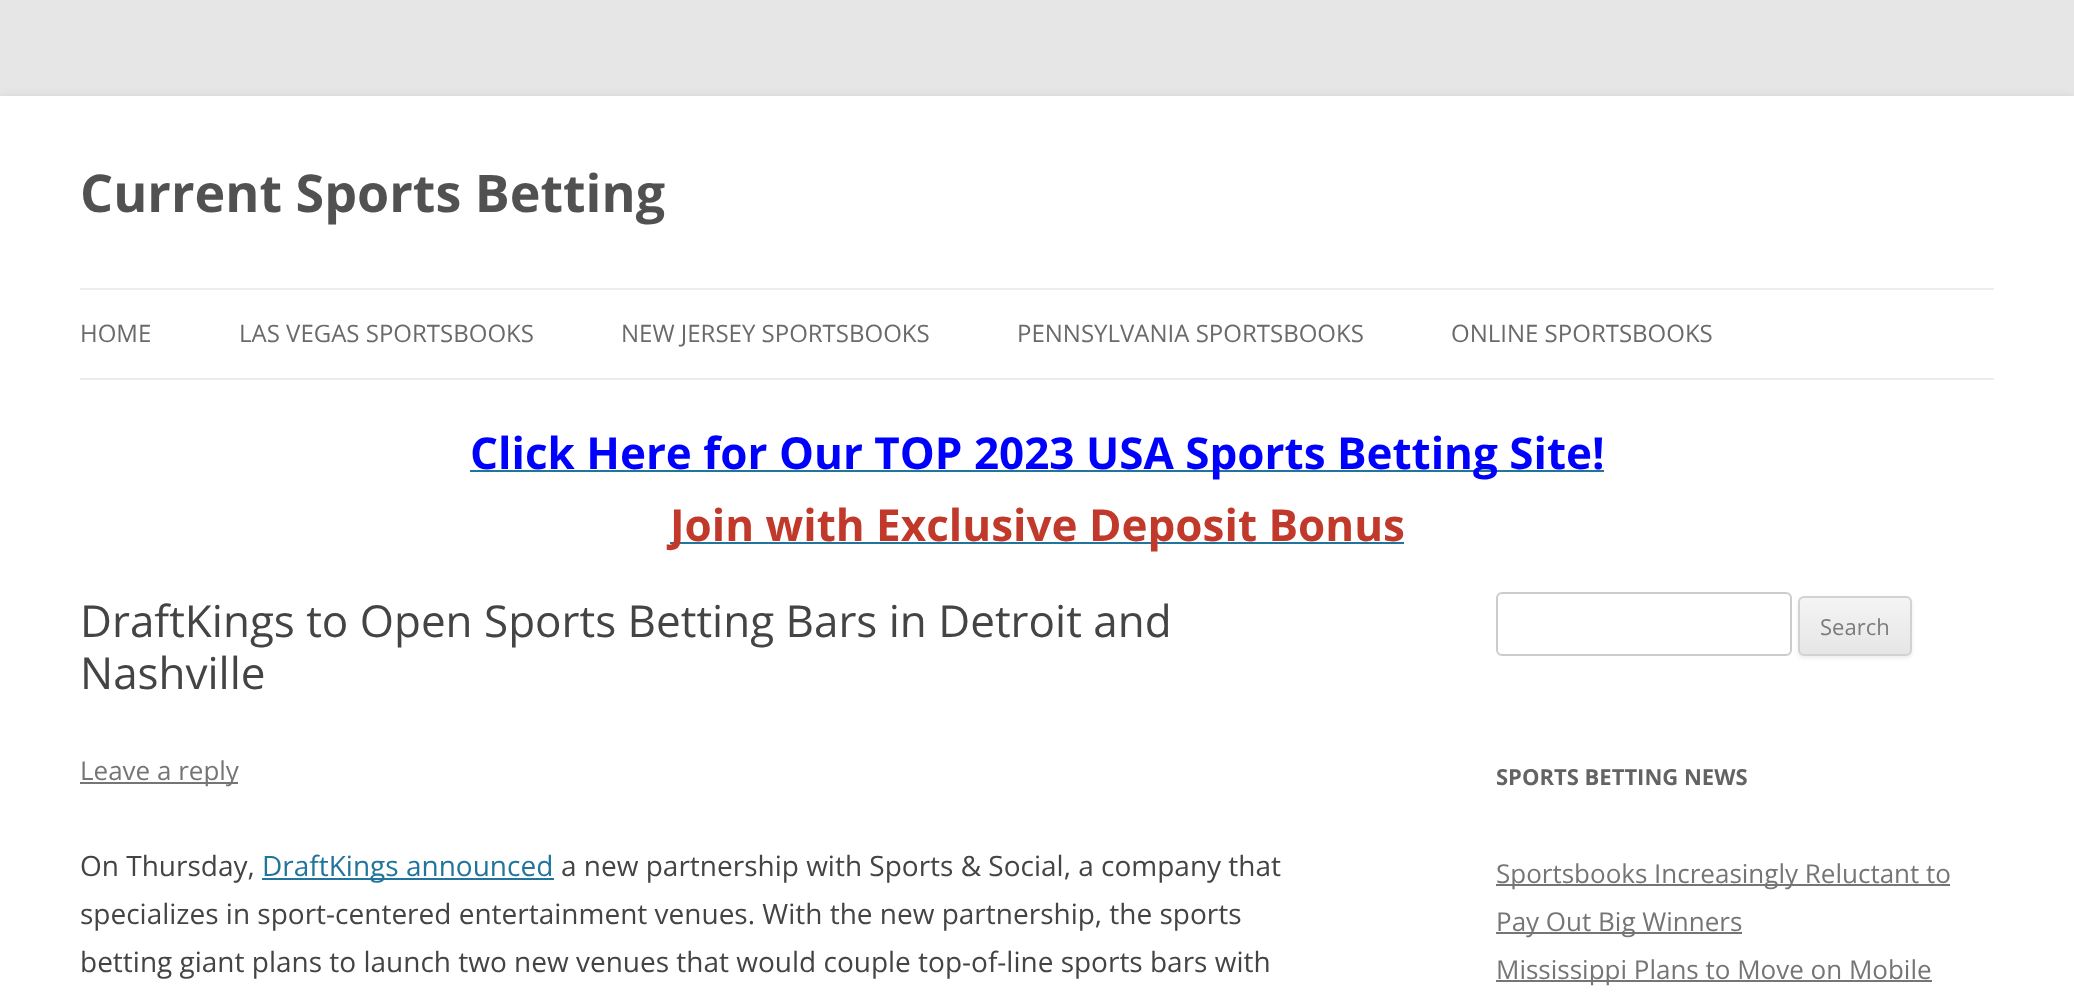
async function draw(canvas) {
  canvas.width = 2074
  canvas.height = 1001
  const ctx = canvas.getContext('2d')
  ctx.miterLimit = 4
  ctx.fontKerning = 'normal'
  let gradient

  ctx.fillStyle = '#e6e6e6'
  ctx.fillRect(0, 0, 2074, 1001)
  ctx.fillStyle = '#6464644d'
  ctx.filter = 'blur(6px)'
  ctx.beginPath()
  ctx.rect(0, 100, 2074, 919)
  ctx.fill()
  ctx.filter = 'none'
  ctx.fillStyle = '#fff'
  ctx.fillRect(0, 96, 2074, 905)
  ctx.font = 'bold 52px Open Sans'
  ctx.fillStyle = '#515151'
  ctx.fillText('Current Sports Betting', 80, 212)
  ctx.fillStyle = '#ededed'
  ctx.fillRect(80, 288, 1914, 2)
  ctx.fillRect(80, 378, 1914, 2)
  ctx.font = '24px Open Sans'
  ctx.fillStyle = '#6a6a6a'
  ctx.fillText('HOME', 80, 342)
  ctx.fillText('LAS VEGAS SPORTSBOOKS', 239, 342)
  ctx.fillText('NEW JERSEY SPORTSBOOKS', 621, 342)
  ctx.fillText('PENNSYLVANIA SPORTSBOOKS', 1017, 342)
  ctx.fillText('ONLINE SPORTSBOOKS', 1451, 342)
  ctx.fillStyle = '#21759b'
  ctx.fillRect(470, 470, 1134, 2)
  ctx.font = 'bold 44px Open Sans'
  ctx.fillStyle = '#00f'
  ctx.fillText('Click Here for Our TOP 2023 USA Sports Betting Site!', 470, 469)
  ctx.fillStyle = '#21759b'
  ctx.fillRect(670, 542, 734, 2)
  ctx.fillStyle = '#c0392b'
  ctx.fillText('Join with Exclusive Deposit Bonus', 670, 541)
  ctx.font = '44px Open Sans'
  ctx.fillStyle = '#444'
  ctx.fillText('DraftKings to Open Sports Betting Bars in Detroit and', 80, 637)
  ctx.fillText('Nashville', 80, 689)
  ctx.fillStyle = '#757575'
  ctx.fillRect(80, 782, 158, 2)
  ctx.font = '26px Open Sans'
  ctx.fillText('Leave a reply', 80, 780)
  ctx.font = '28px Open Sans'
  ctx.fillStyle = '#444'
  ctx.fillText('On Thursday,', 80, 876)
  ctx.fillStyle = '#21759b'
  ctx.fillRect(262, 878, 292, 2)
  ctx.fillText('DraftKings announced', 262, 876)
  ctx.fillStyle = '#444'
  ctx.fillText('a new partnership with Sports & Social, a company that', 561, 876)
  ctx.fillText('specializes in sport-centered entertainment venues. With the new partnership, the sports', 80, 924)
  ctx.fillText('betting giant plans to launch two new venues that would couple top-of-line sports bars with', 80, 972)
  ctx.beginPath()
  ctx.roundRect(1497, 593, 294, 62, 5)
  ctx.strokeStyle = '#ccc'
  ctx.lineWidth = 2
  ctx.stroke()
  ctx.fillStyle = '#4040401a'
  ctx.filter = 'blur(2px)'
  ctx.beginPath()
  ctx.roundRect(1798, 598, 114, 60, 6)
  ctx.fill()
  ctx.filter = 'none'
  ctx.save()
  ctx.beginPath()
  ctx.roundRect(1798, 596, 114, 60, 6)
  ctx.clip()
  gradient = ctx.createLinearGradient(1855, 598, 1855, 654)
  gradient.addColorStop(0, '#f4f4f4')
  gradient.addColorStop(1, '#e6e6e6')
  ctx.fillStyle = gradient
  ctx.fillRect(1798, 598, 114, 56)
  ctx.restore()
  ctx.beginPath()
  ctx.roundRect(1799, 597, 112, 58, 5)
  ctx.strokeStyle = '#d2d2d2'
  ctx.stroke()
  ctx.font = '22px Open Sans'
  ctx.fillStyle = '#7c7c7c'
  ctx.fillText('Search', 1820, 635)
  ctx.font = 'bold 22px Open Sans'
  ctx.fillStyle = '#636363'
  ctx.fillText('SPORTS BETTING NEWS', 1496, 785)
  ctx.fillStyle = '#757575'
  ctx.fillRect(1496, 884, 454, 2)
  ctx.font = '26px Open Sans'
  ctx.fillText('Sportsbooks Increasingly Reluctant to', 1496, 883)
  ctx.fillRect(1496, 932, 246, 2)
  ctx.fillText('Pay Out Big Winners', 1496, 931)
  ctx.fillRect(1496, 980, 436, 2)
  ctx.fillText('Mississippi Plans to Move on Mobile', 1496, 979)
}

draw(document.querySelector('canvas'))
